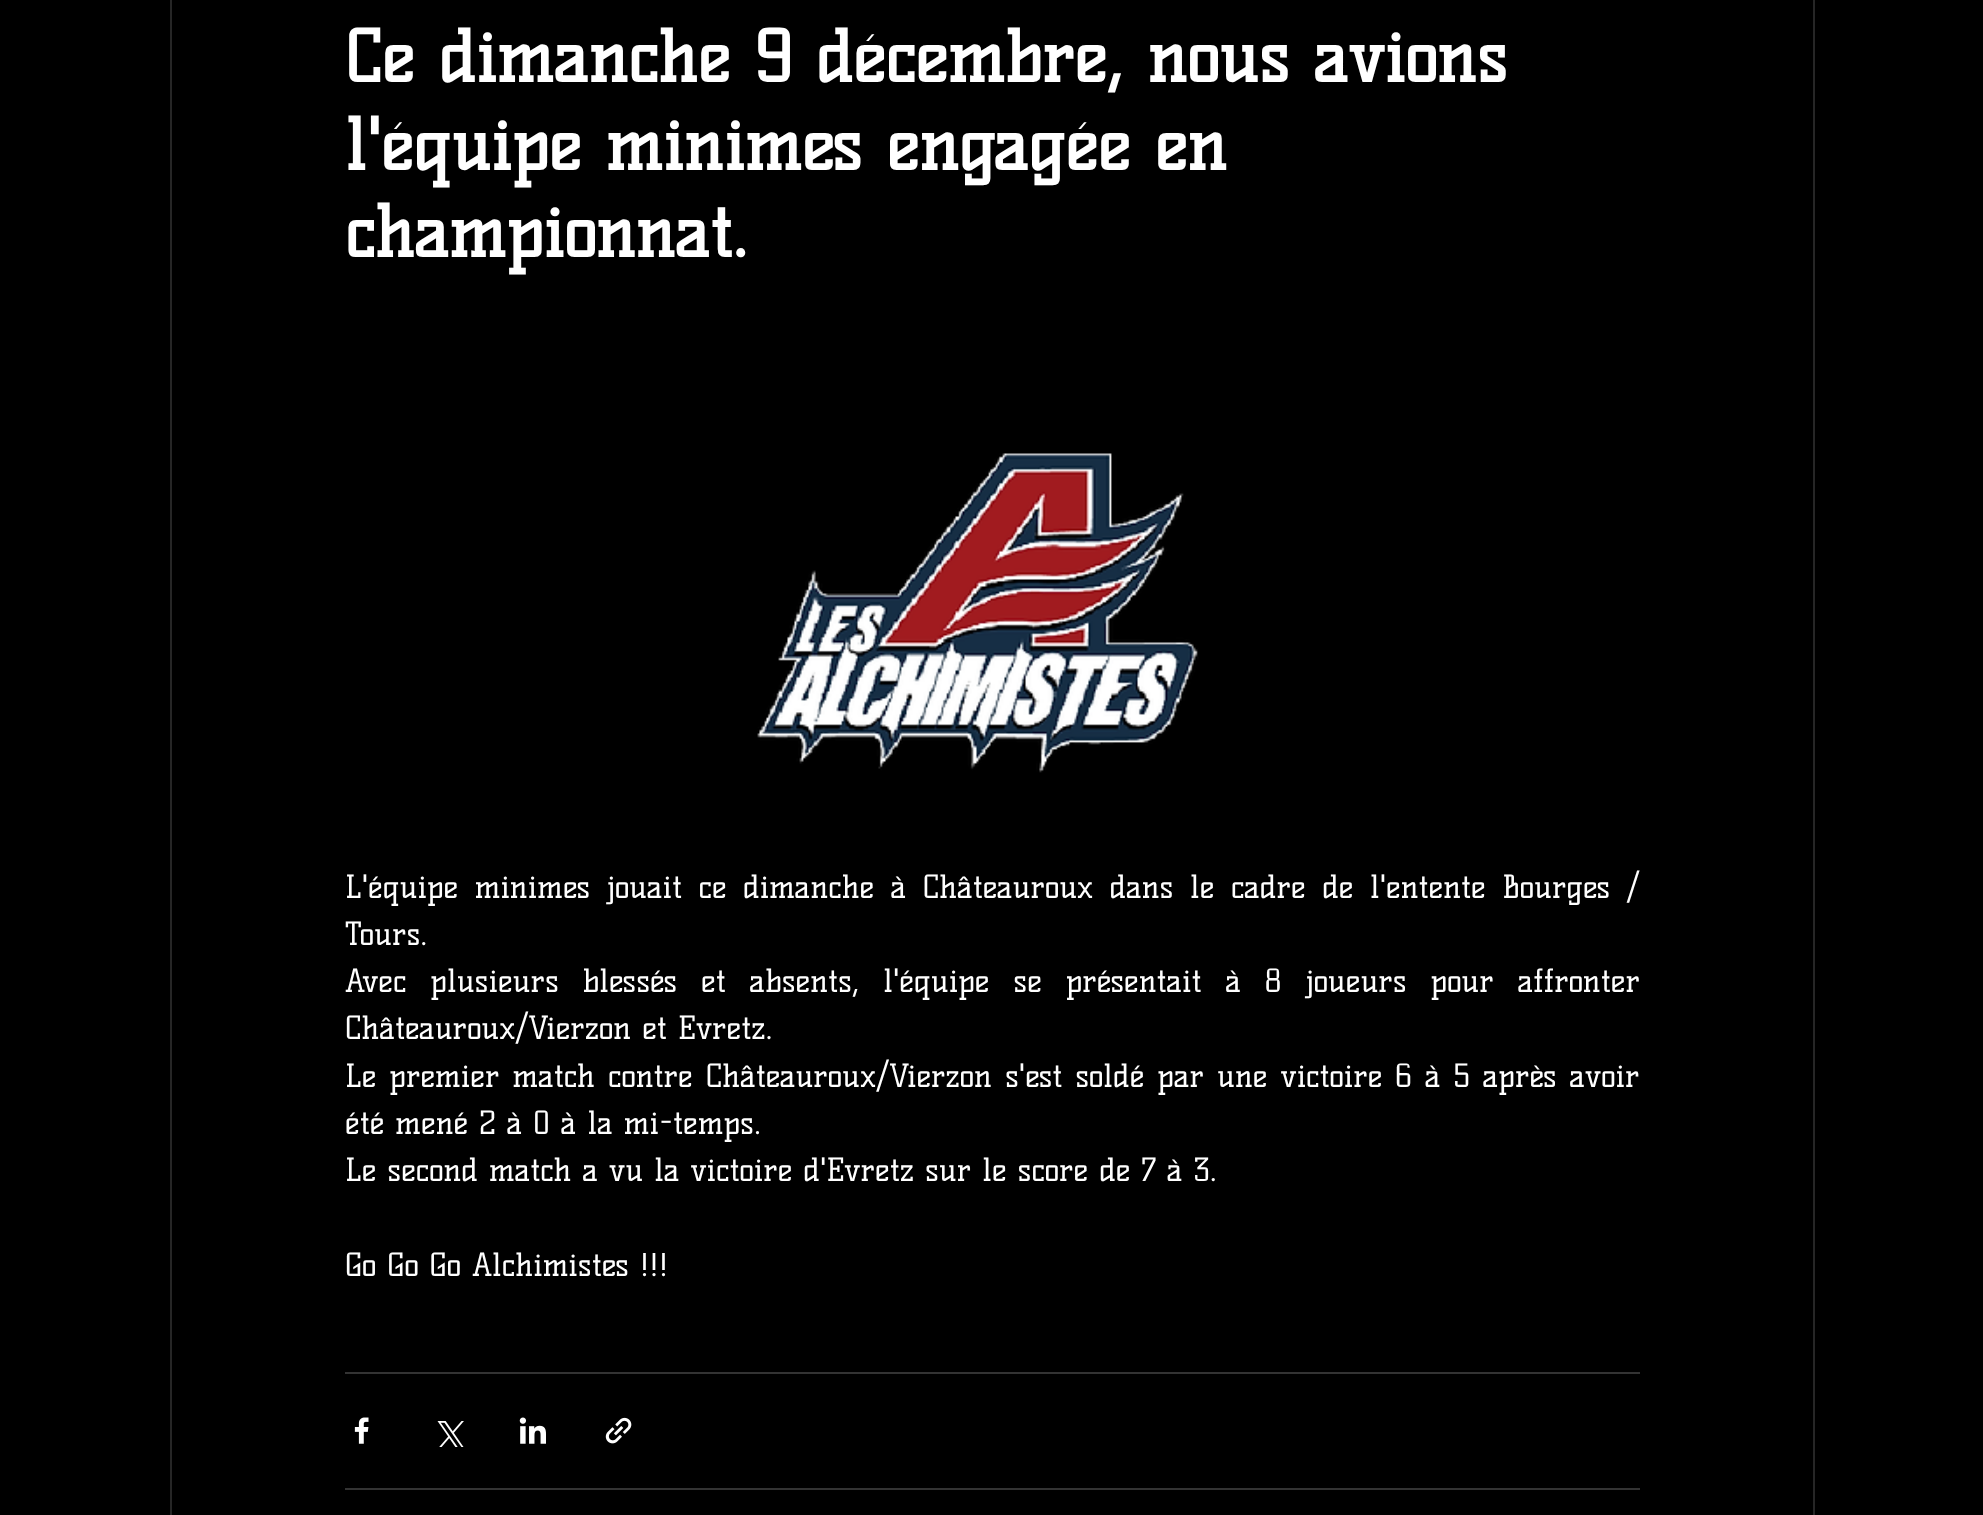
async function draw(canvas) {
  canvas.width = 1983
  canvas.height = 1515
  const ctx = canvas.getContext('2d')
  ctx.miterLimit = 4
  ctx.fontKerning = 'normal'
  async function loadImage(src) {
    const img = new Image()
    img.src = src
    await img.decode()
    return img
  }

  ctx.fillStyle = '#000'
  ctx.fillRect(0, 0, 1983, 1515)
  ctx.strokeStyle = '#262626'
  ctx.lineWidth = 2
  ctx.strokeRect(171, -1, 1643, 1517)
  ctx.font = 'bold 70px Kelly Slab'
  ctx.fillStyle = '#fff'
  ctx.fillText('Ce dimanche 9 décembre, nous avions', 345, 82)
  ctx.fillText('l\'équipe minimes engagée en', 345, 170)
  ctx.fillText('championnat.', 345, 257)
  ctx.drawImage(await loadImage('image0.png'), 757, 453, 442, 320)
  ctx.wordSpacing = '5.5px'
  ctx.font = '31.5px Kelly Slab'
  ctx.fillText('L\'équipe minimes jouait ce dimanche à Châteauroux dans le cadre de l\'entente Bourges /', 345, 898)
  ctx.wordSpacing = '0px'
  ctx.fillText('Tours.', 345, 945)
  ctx.wordSpacing = '12.9px'
  ctx.fillText('Avec plusieurs blessés et absents, l\'équipe se présentait à 8 joueurs pour affronter', 345, 992)
  ctx.wordSpacing = '0px'
  ctx.fillText('Châteauroux/Vierzon et Evretz.', 345, 1039)
  ctx.wordSpacing = '2px'
  ctx.fillText('Le premier match contre Châteauroux/Vierzon s\'est soldé par une victoire 6 à 5 après avoir', 345, 1087)
  ctx.wordSpacing = '0px'
  ctx.fillText('été mené 2 à 0 à la mi-temps.', 345, 1134)
  ctx.fillText('Le second match a vu la victoire d\'Evretz sur le score de 7 à 3.', 345, 1181)
  ctx.fillText('Go Go Go Alchimistes !!!', 345, 1276)
  ctx.fillStyle = '#333'
  ctx.fillRect(345, 1372, 1295, 2)
  ctx.drawImage(await loadImage('image1.png'), 354, 1417, 15, 27)
  ctx.drawImage(await loadImage('image2.png'), 437, 1421, 27, 26)
  ctx.drawImage(await loadImage('image3.png'), 519, 1417, 27, 27)
  ctx.drawImage(await loadImage('image4.png'), 605, 1417, 27, 27)
  ctx.fillRect(345, 1488, 1295, 2)
}

draw(document.querySelector('canvas'))
